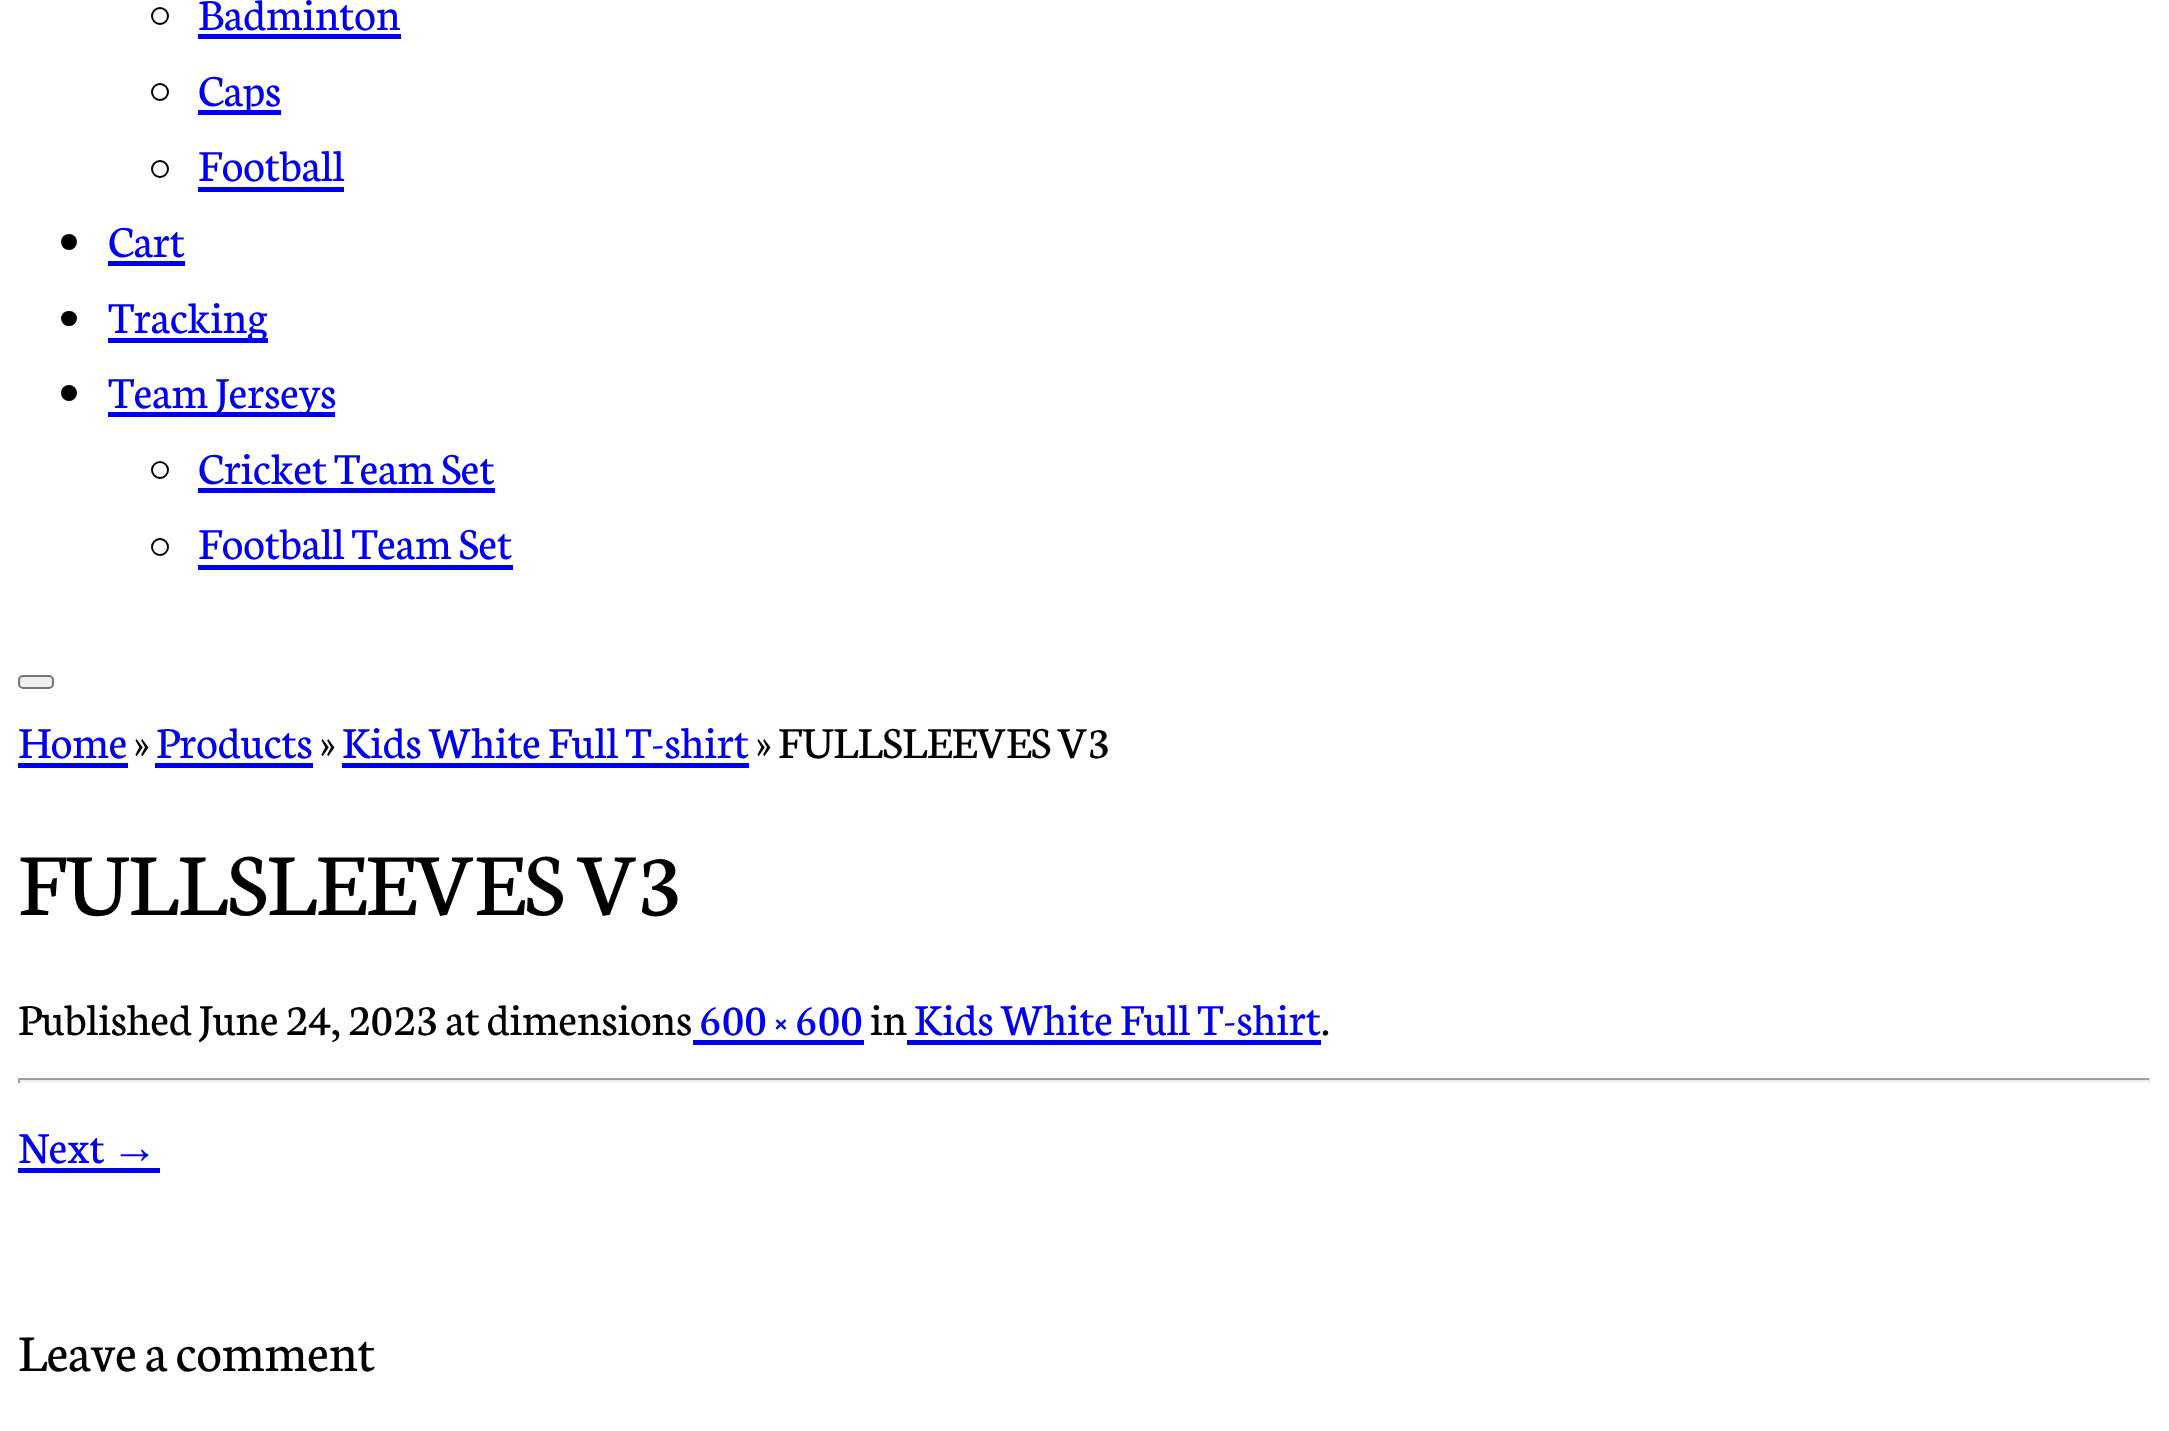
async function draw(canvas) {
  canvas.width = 2169
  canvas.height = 1431
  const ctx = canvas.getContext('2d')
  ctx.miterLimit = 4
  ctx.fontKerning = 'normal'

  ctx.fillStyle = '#fff'
  ctx.fillRect(0, 0, 2169, 1431)
  ctx.beginPath()
  ctx.arc(160, 16, 8, 0, 2 * Math.PI)
  ctx.strokeStyle = '#000'
  ctx.lineWidth = 2
  ctx.stroke()
  ctx.font = '47.25px Neuton'
  ctx.fillStyle = '#00e'
  ctx.fillText('Badminton', 198, 30)
  ctx.fillRect(198, 34, 203, 5)
  ctx.beginPath()
  ctx.arc(160, 92, 8, 0, 2 * Math.PI)
  ctx.stroke()
  ctx.fillRect(198, 110, 83, 5)
  ctx.fillText('Caps', 198, 106)
  ctx.beginPath()
  ctx.arc(160, 169, 8, 0, 2 * Math.PI)
  ctx.stroke()
  ctx.fillText('Football', 198, 181)
  ctx.fillRect(198, 187, 146, 5)
  ctx.fillStyle = '#000'
  ctx.beginPath()
  ctx.arc(69, 242, 8, 0, 2 * Math.PI)
  ctx.fill()
  ctx.fillStyle = '#00e'
  ctx.fillText('Cart', 108, 257)
  ctx.fillRect(108, 261, 77, 5)
  ctx.fillStyle = '#000'
  ctx.beginPath()
  ctx.roundRect(61, 311, 16, 15, 7.5)
  ctx.fill()
  ctx.fillStyle = '#00e'
  ctx.fillRect(108, 338, 160, 5)
  ctx.fillText('Tracking', 108, 333)
  ctx.fillStyle = '#000'
  ctx.beginPath()
  ctx.arc(69, 393, 8, 0, 2 * Math.PI)
  ctx.fill()
  ctx.fillStyle = '#00e'
  ctx.fillRect(108, 412, 227, 5)
  ctx.fillText('Team Jerseys', 108, 408)
  ctx.beginPath()
  ctx.arc(160, 470, 8, 0, 2 * Math.PI)
  ctx.stroke()
  ctx.fillText('Cricket Team Set', 198, 484)
  ctx.fillRect(198, 488, 297, 5)
  ctx.beginPath()
  ctx.arc(160, 547, 8, 0, 2 * Math.PI)
  ctx.stroke()
  ctx.fillText('Football Team Set', 198, 559)
  ctx.fillRect(198, 565, 315, 5)
  ctx.fillStyle = '#efefef'
  ctx.beginPath()
  ctx.roundRect(19, 676, 34, 12, 4)
  ctx.fill()
  ctx.strokeStyle = '#767676'
  ctx.stroke()
  ctx.fillStyle = '#00e'
  ctx.fillText('Home', 18, 758)
  ctx.fillRect(18, 763, 110, 5)
  ctx.fillStyle = '#000'
  ctx.fillText('»', 134, 758)
  ctx.fillStyle = '#00e'
  ctx.fillText('Products', 156, 758)
  ctx.fillRect(155, 763, 158, 5)
  ctx.fillStyle = '#000'
  ctx.fillText('»', 320, 758)
  ctx.fillStyle = '#00e'
  ctx.fillText('Kids White Full T-shirt', 342, 758)
  ctx.fillRect(342, 763, 407, 5)
  ctx.fillStyle = '#000'
  ctx.fillText('» FULLSLEEVES V3', 756, 758)
  ctx.font = '94.5px Neuton'
  ctx.fillText('FULLSLEEVES V3', 18, 915)
  ctx.font = '47.25px Neuton'
  ctx.fillText('Published June 24, 2023 at dimensions', 18, 1035)
  ctx.fillStyle = '#00e'
  ctx.fillText('600 × 600', 699, 1035)
  ctx.fillRect(693, 1040, 171, 5)
  ctx.fillStyle = '#000'
  ctx.fillText('in', 870, 1035)
  ctx.fillStyle = '#00e'
  ctx.fillText('Kids White Full T-shirt', 914, 1035)
  ctx.fillRect(907, 1040, 414, 5)
  ctx.fillStyle = '#000'
  ctx.fillText('.', 1321, 1035)
  ctx.fillStyle = '#9f9f9f'
  ctx.fillRect(18, 1078, 2133, 2)
  ctx.fillStyle = '#eee'
  ctx.fillRect(2149, 1078, 2, 5)
  ctx.fillRect(18, 1080, 2133, 2)
  ctx.fillStyle = '#9f9f9f'
  ctx.fillRect(18, 1078, 2, 5)
  ctx.fillStyle = '#00e'
  ctx.fillText('Next', 18, 1163)
  ctx.font = '47.25px Liberation Serif'
  ctx.fillText('→', 111, 1163)
  ctx.fillRect(18, 1168, 142, 5)
  ctx.font = '55.25px Neuton'
  ctx.fillStyle = '#000'
  ctx.fillText('Leave a comment', 18, 1371)
}

draw(document.querySelector('canvas'))
